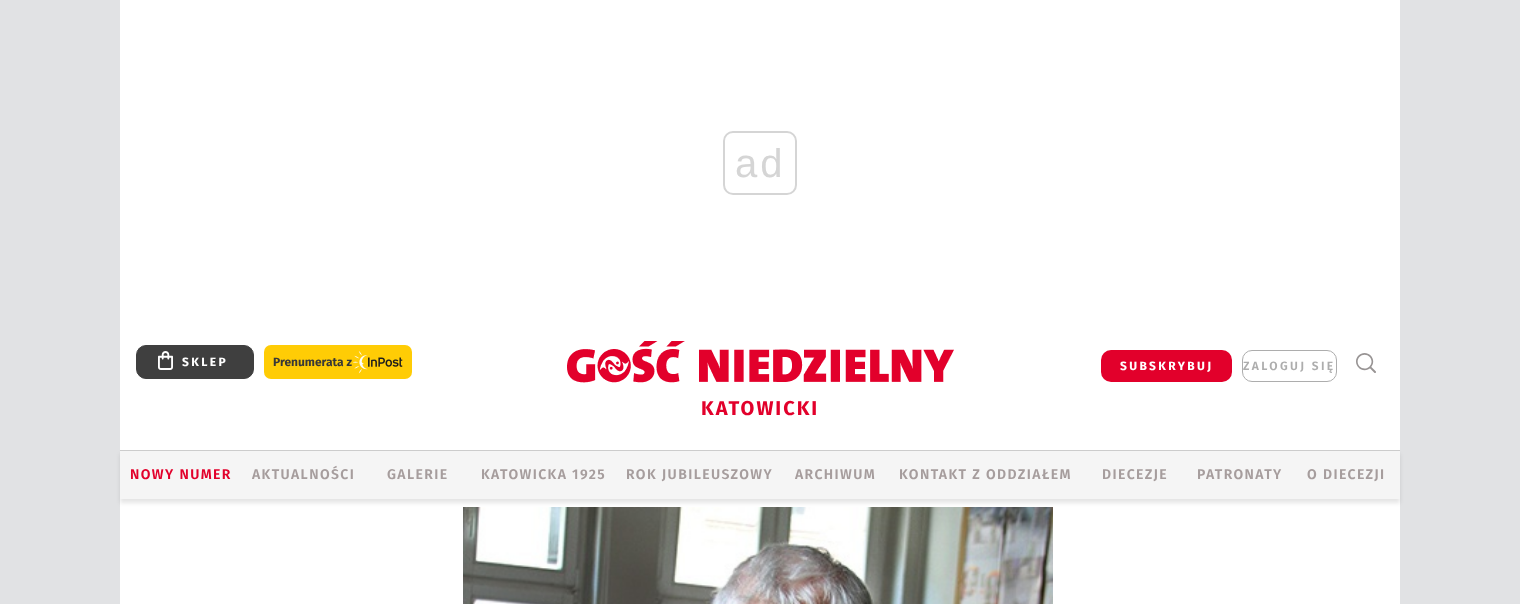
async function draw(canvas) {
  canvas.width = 1520
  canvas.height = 604
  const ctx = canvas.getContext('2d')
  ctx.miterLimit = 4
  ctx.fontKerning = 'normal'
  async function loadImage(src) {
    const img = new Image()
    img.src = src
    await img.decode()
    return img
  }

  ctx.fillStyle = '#e1e2e4'
  ctx.fillRect(0, 0, 1520, 604)
  ctx.fillStyle = '#fff'
  ctx.fillRect(120, 0, 1280, 325)
  ctx.beginPath()
  ctx.roundRect(724, 132, 72, 62, 9)
  ctx.strokeStyle = '#d5d5d5'
  ctx.lineWidth = 2
  ctx.stroke()
  ctx.letterSpacing = '3px'
  ctx.font = '40px Liberation Sans'
  ctx.fillStyle = '#d5d5d5'
  ctx.fillText('ad', 735, 177)
  ctx.fillStyle = '#f5f5f5'
  ctx.fillRect(120, 451, 1280, 48)
  ctx.fillStyle = '#fff'
  ctx.fillRect(120, 325, 1280, 125)
  ctx.fillStyle = '#3f3f3f'
  ctx.beginPath()
  ctx.roundRect(136.5, 345.5, 117, 33, 9.5)
  ctx.fill()
  ctx.strokeStyle = '#3f3f3f'
  ctx.lineWidth = 1
  ctx.stroke()
  ctx.drawImage(await loadImage('image0.png'), 158, 351, 15, 19)
  ctx.letterSpacing = '2.4px'
  ctx.font = 'bold 12px "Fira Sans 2"'
  ctx.fillStyle = '#fff'
  ctx.fillText('SKLEP', 182, 366)
  ctx.fillStyle = '#ffcc05'
  ctx.beginPath()
  ctx.roundRect(264, 345, 148, 34, 7)
  ctx.fill()
  ctx.letterSpacing = '0px'
  ctx.font = 'bold 12px Fira Sans'
  ctx.fillStyle = '#383838'
  ctx.fillText('Prenumerata z', 273, 366)
  ctx.drawImage(await loadImage('image1.png'), 353, 351, 50, 23)
  ctx.fillStyle = '#e2002b'
  ctx.beginPath()
  ctx.roundRect(1101, 350, 131, 32, 10)
  ctx.fill()
  ctx.letterSpacing = '2.4px'
  ctx.font = 'bold 12px "Fira Sans 2"'
  ctx.fillStyle = '#fff'
  ctx.fillText('SUBSKRYBUJ', 1120, 370)
  ctx.beginPath()
  ctx.roundRect(1242.5, 350.5, 94, 31, 9.5)
  ctx.strokeStyle = '#adadad'
  ctx.stroke()
  ctx.font = '600 12px Fira Sans'
  ctx.fillStyle = '#adadad'
  ctx.fillText('ZALOGUJ SIĘ', 1243, 370)
  ctx.drawImage(await loadImage('image2.png'), 1356, 353, 20, 20)
  ctx.drawImage(await loadImage('image3.png'), 567, 341, 387, 42)
  ctx.letterSpacing = '2px'
  ctx.font = 'bold 20px "Fira Sans 2"'
  ctx.fillStyle = '#e2002b'
  ctx.fillText('KATOWICKI', 701, 415)
  ctx.fillStyle = '#fff'
  ctx.fillRect(120, 499, 1280, 105)
  ctx.drawImage(await loadImage('image4.png'), 463, 507, 590, 97)
  ctx.save()
  ctx.beginPath()
  ctx.moveTo(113, 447)
  ctx.lineTo(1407, 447)
  ctx.lineTo(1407, 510)
  ctx.lineTo(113, 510)
  ctx.closePath()
  ctx.moveTo(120, 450)
  ctx.lineTo(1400, 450)
  ctx.lineTo(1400, 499)
  ctx.lineTo(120, 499)
  ctx.closePath()
  ctx.clip('evenodd')
  ctx.fillStyle = '#0000001a'
  ctx.filter = 'blur(2px)'
  ctx.beginPath()
  ctx.rect(120, 454, 1280, 49)
  ctx.fill()
  ctx.filter = 'none'
  ctx.restore()
  ctx.fillStyle = '#ccc'
  ctx.fillRect(120, 450, 1280, 1)
  ctx.letterSpacing = '1.4px'
  ctx.font = '600 14px Fira Sans'
  ctx.fillStyle = '#e2002b'
  ctx.fillText('NOWY NUMER', 130, 479)
  ctx.fillStyle = '#a69d9d'
  ctx.fillText('AKTUALNOŚCI', 252, 479)
  ctx.fillText('GALERIE', 387, 479)
  ctx.fillText('KATOWICKA 1925', 481, 479)
  ctx.fillText('ROK JUBILEUSZOWY', 626, 479)
  ctx.fillText('ARCHIWUM', 795, 479)
  ctx.fillText('KONTAKT Z ODDZIAŁEM', 899, 479)
  ctx.fillText('DIECEZJE', 1102, 479)
  ctx.fillText('PATRONATY', 1197, 479)
  ctx.fillText('O DIECEZJI', 1307, 479)
}

draw(document.querySelector('canvas'))
